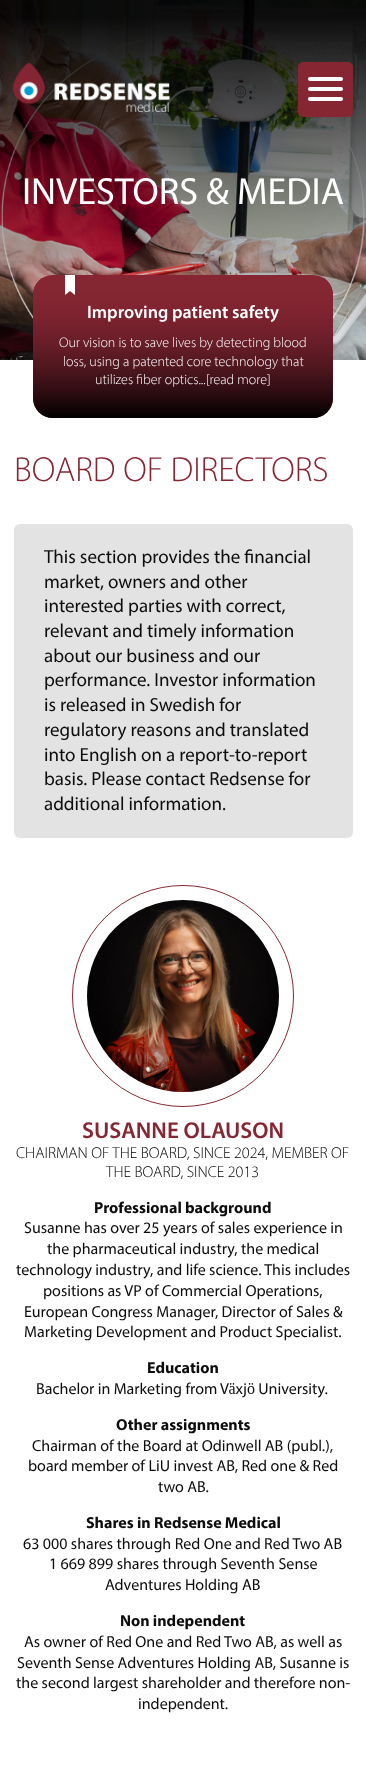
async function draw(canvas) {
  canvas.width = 366
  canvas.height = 1789
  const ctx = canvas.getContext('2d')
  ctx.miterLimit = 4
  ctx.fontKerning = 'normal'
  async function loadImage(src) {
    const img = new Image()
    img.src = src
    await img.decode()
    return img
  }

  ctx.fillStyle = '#fff'
  ctx.fillRect(0, 0, 366, 1789)
  ctx.drawImage(await loadImage('image1.png'), 0, 0, 366, 360)
  ctx.drawImage(await loadImage('image0.png'), 13, 63, 157, 49)
  ctx.fillStyle = '#862633'
  ctx.beginPath()
  ctx.roundRect(298, 62, 55, 55, 5)
  ctx.fill()
  ctx.fillStyle = '#fff'
  ctx.beginPath()
  ctx.roundRect(308, 87, 35, 4, 2)
  ctx.fill()
  ctx.beginPath()
  ctx.roundRect(308, 77, 35, 4, 2)
  ctx.fill()
  ctx.beginPath()
  ctx.roundRect(308, 97, 35, 4, 2)
  ctx.fill()
  ctx.font = '38px Myriad'
  ctx.fillText('INVESTORS & MEDIA', 22, 204)
  ctx.fillStyle = '#862633'
  ctx.beginPath()
  ctx.roundRect(33, 275, 300, 143, 20)
  ctx.fill()
  ctx.drawImage(await loadImage('image2.png'), 33, 275, 300, 143)
  ctx.font = '600 18px Myriad'
  ctx.fillStyle = '#fff'
  ctx.fillText('Improving patient safety', 87, 318)
  ctx.font = '300 14px Myriad'
  ctx.fillText('Our vision is to save lives by detecting blood', 59, 347)
  ctx.fillText('loss, using a patented core technology that', 63, 366)
  ctx.fillText('utilizes fiber optics...[read more]', 95, 384)
  ctx.font = '300 35px Myriad'
  ctx.fillStyle = '#862633'
  ctx.fillText('BOARD OF DIRECTORS', 14, 481)
  ctx.fillStyle = '#e3e3e3'
  ctx.beginPath()
  ctx.roundRect(14, 524, 339, 314, 6)
  ctx.fill()
  ctx.font = '19px Myriad'
  ctx.fillStyle = '#0d0d0d'
  ctx.fillText('This section provides the financial', 44, 563)
  ctx.fillText('market, owners and other', 44, 588)
  ctx.fillText('interested parties with correct,', 44, 612)
  ctx.fillText('relevant and timely information', 44, 637)
  ctx.fillText('about our business and our', 44, 662)
  ctx.fillText('performance. Investor information', 44, 686)
  ctx.fillText('is released in Swedish for', 44, 711)
  ctx.fillText('regulatory reasons and translated', 44, 736)
  ctx.fillText('into English on a report-to-report', 44, 761)
  ctx.fillText('basis. Please contact Redsense for', 44, 785)
  ctx.fillText('additional information.', 44, 810)
  ctx.beginPath()
  ctx.arc(183, 996, 110.5, 0, 2 * Math.PI)
  ctx.strokeStyle = '#862633'
  ctx.stroke()
  ctx.drawImage(await loadImage('image3.png'), 87, 900, 192, 192)
  ctx.font = '600 23px Myriad'
  ctx.fillStyle = '#862633'
  ctx.fillText('SUSANNE OLAUSON', 82, 1138)
  ctx.font = '300 16px Myriad'
  ctx.fillStyle = '#000'
  ctx.fillText('CHAIRMAN OF THE BOARD, SINCE 2024, MEMBER OF', 16, 1158)
  ctx.fillText('THE BOARD, SINCE 2013', 106, 1177)
  ctx.font = 'bold 16px Myriad'
  ctx.fillStyle = '#0d0d0d'
  ctx.fillText('Professional background', 94, 1213)
  ctx.font = '16px Myriad'
  ctx.fillText('Susanne has over 25 years of sales experience in', 24, 1233)
  ctx.fillText('the pharmaceutical industry, the medical', 47, 1254)
  ctx.fillText('technology industry, and life science. This includes', 16, 1275)
  ctx.fillText('positions as VP of Commercial Operations,', 43, 1296)
  ctx.fillText('European Congress Manager, Director of Sales &', 24, 1317)
  ctx.fillText('Marketing Development and Product Specialist.', 24, 1337)
  ctx.font = 'bold 16px Myriad'
  ctx.fillText('Education', 147, 1373)
  ctx.font = '16px Myriad'
  ctx.fillText('Bachelor in Marketing from Växjö University.', 36, 1394)
  ctx.font = 'bold 16px Myriad'
  ctx.fillText('Other assignments', 116, 1430)
  ctx.font = '16px Myriad'
  ctx.fillText('Chairman of the Board at Odinwell AB (publ.),', 32, 1451)
  ctx.fillText('board member of LiU invest AB, Red one & Red', 28, 1471)
  ctx.fillText('two AB.', 158, 1492)
  ctx.font = 'bold 16px Myriad'
  ctx.fillText('Shares in Redsense Medical', 86, 1528)
  ctx.font = '16px Myriad'
  ctx.fillText('63 000 shares through Red One and Red Two AB', 23, 1549)
  ctx.fillText('1 669 899 shares through Seventh Sense', 49, 1569)
  ctx.fillText('Adventures Holding AB', 105, 1590)
  ctx.font = 'bold 16px Myriad'
  ctx.fillText('Non independent', 120, 1626)
  ctx.font = '16px Myriad'
  ctx.fillText('As owner of Red One and Red Two AB, as well as', 24, 1647)
  ctx.fillText('Seventh Sense Adventures Holding AB, Susanne is', 17, 1668)
  ctx.fillText('the second largest shareholder and therefore non-', 16, 1688)
  ctx.fillText('independent.', 138, 1709)
}

draw(document.querySelector('canvas'))
